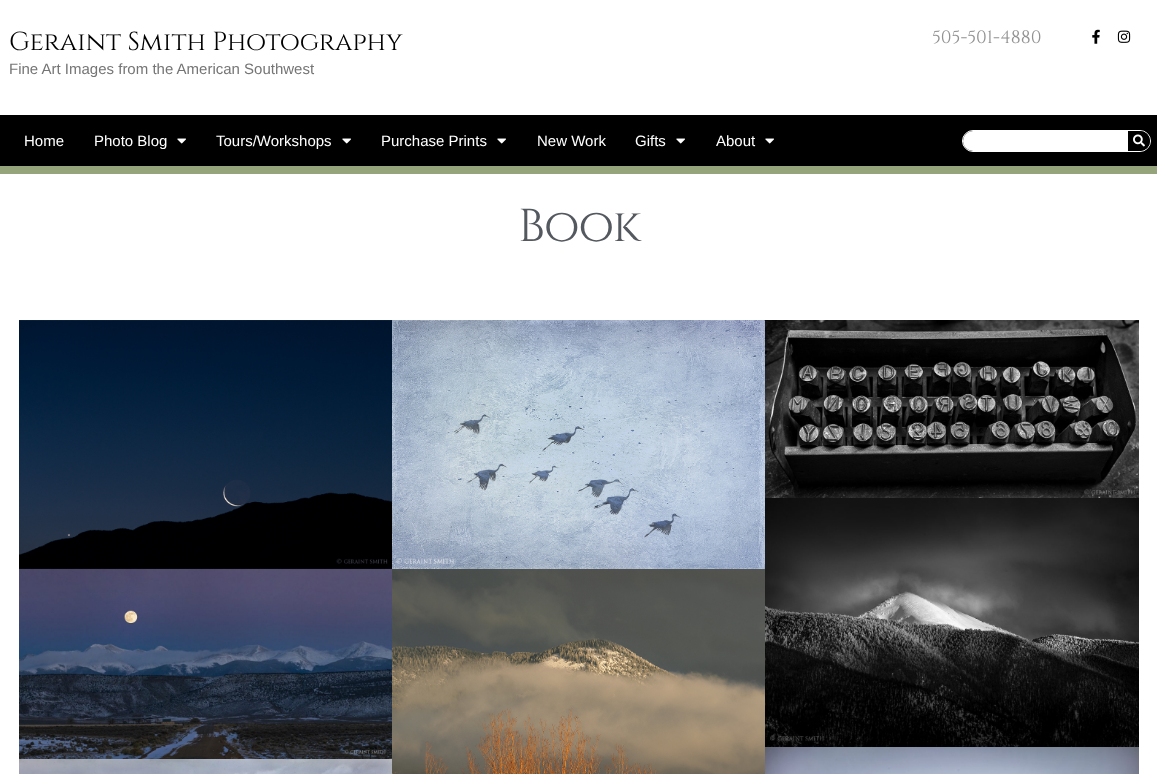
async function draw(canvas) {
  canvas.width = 1157
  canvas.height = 774
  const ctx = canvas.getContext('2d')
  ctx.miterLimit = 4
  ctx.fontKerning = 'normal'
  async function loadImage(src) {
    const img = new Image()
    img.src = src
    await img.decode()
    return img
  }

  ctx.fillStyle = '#fff'
  ctx.fillRect(0, 0, 1157, 774)
  ctx.font = '26px Cinzel'
  ctx.fillStyle = '#000'
  ctx.fillText('Geraint Smith Photography', 9, 50)
  ctx.font = '15px Liberation Sans'
  ctx.fillStyle = '#757575'
  ctx.fillText('Fine Art Images from the American Southwest', 9, 74)
  ctx.font = '18px Cinzel'
  ctx.fillStyle = '#929292'
  ctx.fillText('505-501-4880', 932, 43)
  ctx.drawImage(await loadImage('image0.png'), 1092, 29, 8, 15)
  ctx.drawImage(await loadImage('image1.png'), 1117, 30, 14, 13)
  ctx.fillStyle = '#000'
  ctx.fillRect(0, 115, 1157, 51)
  ctx.fillStyle = '#95a47a'
  ctx.fillRect(0, 166, 1157, 8)
  ctx.font = '15px Liberation Sans'
  ctx.fillStyle = '#fff'
  ctx.fillText('Home', 24, 146)
  ctx.fillText('Photo Blog', 94, 146)
  ctx.drawImage(await loadImage('image2.png'), 177, 138, 9, 6)
  ctx.fillText('Tours/Workshops', 216, 146)
  ctx.drawImage(await loadImage('image2.png'), 342, 138, 9, 6)
  ctx.fillText('Purchase Prints', 381, 146)
  ctx.drawImage(await loadImage('image2.png'), 497, 138, 9, 6)
  ctx.fillText('New Work', 537, 146)
  ctx.fillText('Gifts', 635, 146)
  ctx.drawImage(await loadImage('image2.png'), 676, 138, 9, 6)
  ctx.fillText('About', 716, 146)
  ctx.drawImage(await loadImage('image2.png'), 765, 138, 9, 6)
  ctx.beginPath()
  ctx.roundRect(962.5, 130.5, 188, 21, 10.5)
  ctx.strokeStyle = '#fff'
  ctx.stroke()
  ctx.beginPath()
  ctx.roundRect(963, 131, 165, 20, [10, 0, 0, 10])
  ctx.fill()
  ctx.fillStyle = '#000'
  ctx.beginPath()
  ctx.roundRect(1128, 131, 22, 20, [0, 10, 10, 0])
  ctx.fill()
  ctx.drawImage(await loadImage('image3.png'), 1133, 134, 12, 13)
  ctx.letterSpacing = '-1px'
  ctx.font = '46px Cinzel'
  ctx.fillStyle = '#54595f'
  ctx.fillText('Book', 518, 241)
  ctx.drawImage(await loadImage('image4.png'), 19, 320, 373, 249)
  ctx.drawImage(await loadImage('image5.png'), 392, 320, 373, 249)
  ctx.drawImage(await loadImage('image6.png'), 765, 320, 374, 178)
  ctx.drawImage(await loadImage('image7.png'), 19, 569, 373, 190)
  ctx.drawImage(await loadImage('image8.png'), 392, 569, 373, 205)
  ctx.drawImage(await loadImage('image9.png'), 765, 498, 374, 249)
  ctx.drawImage(await loadImage('image10.png'), 19, 759, 373, 15)
  ctx.drawImage(await loadImage('image11.png'), 765, 747, 374, 27)
}

draw(document.querySelector('canvas'))
